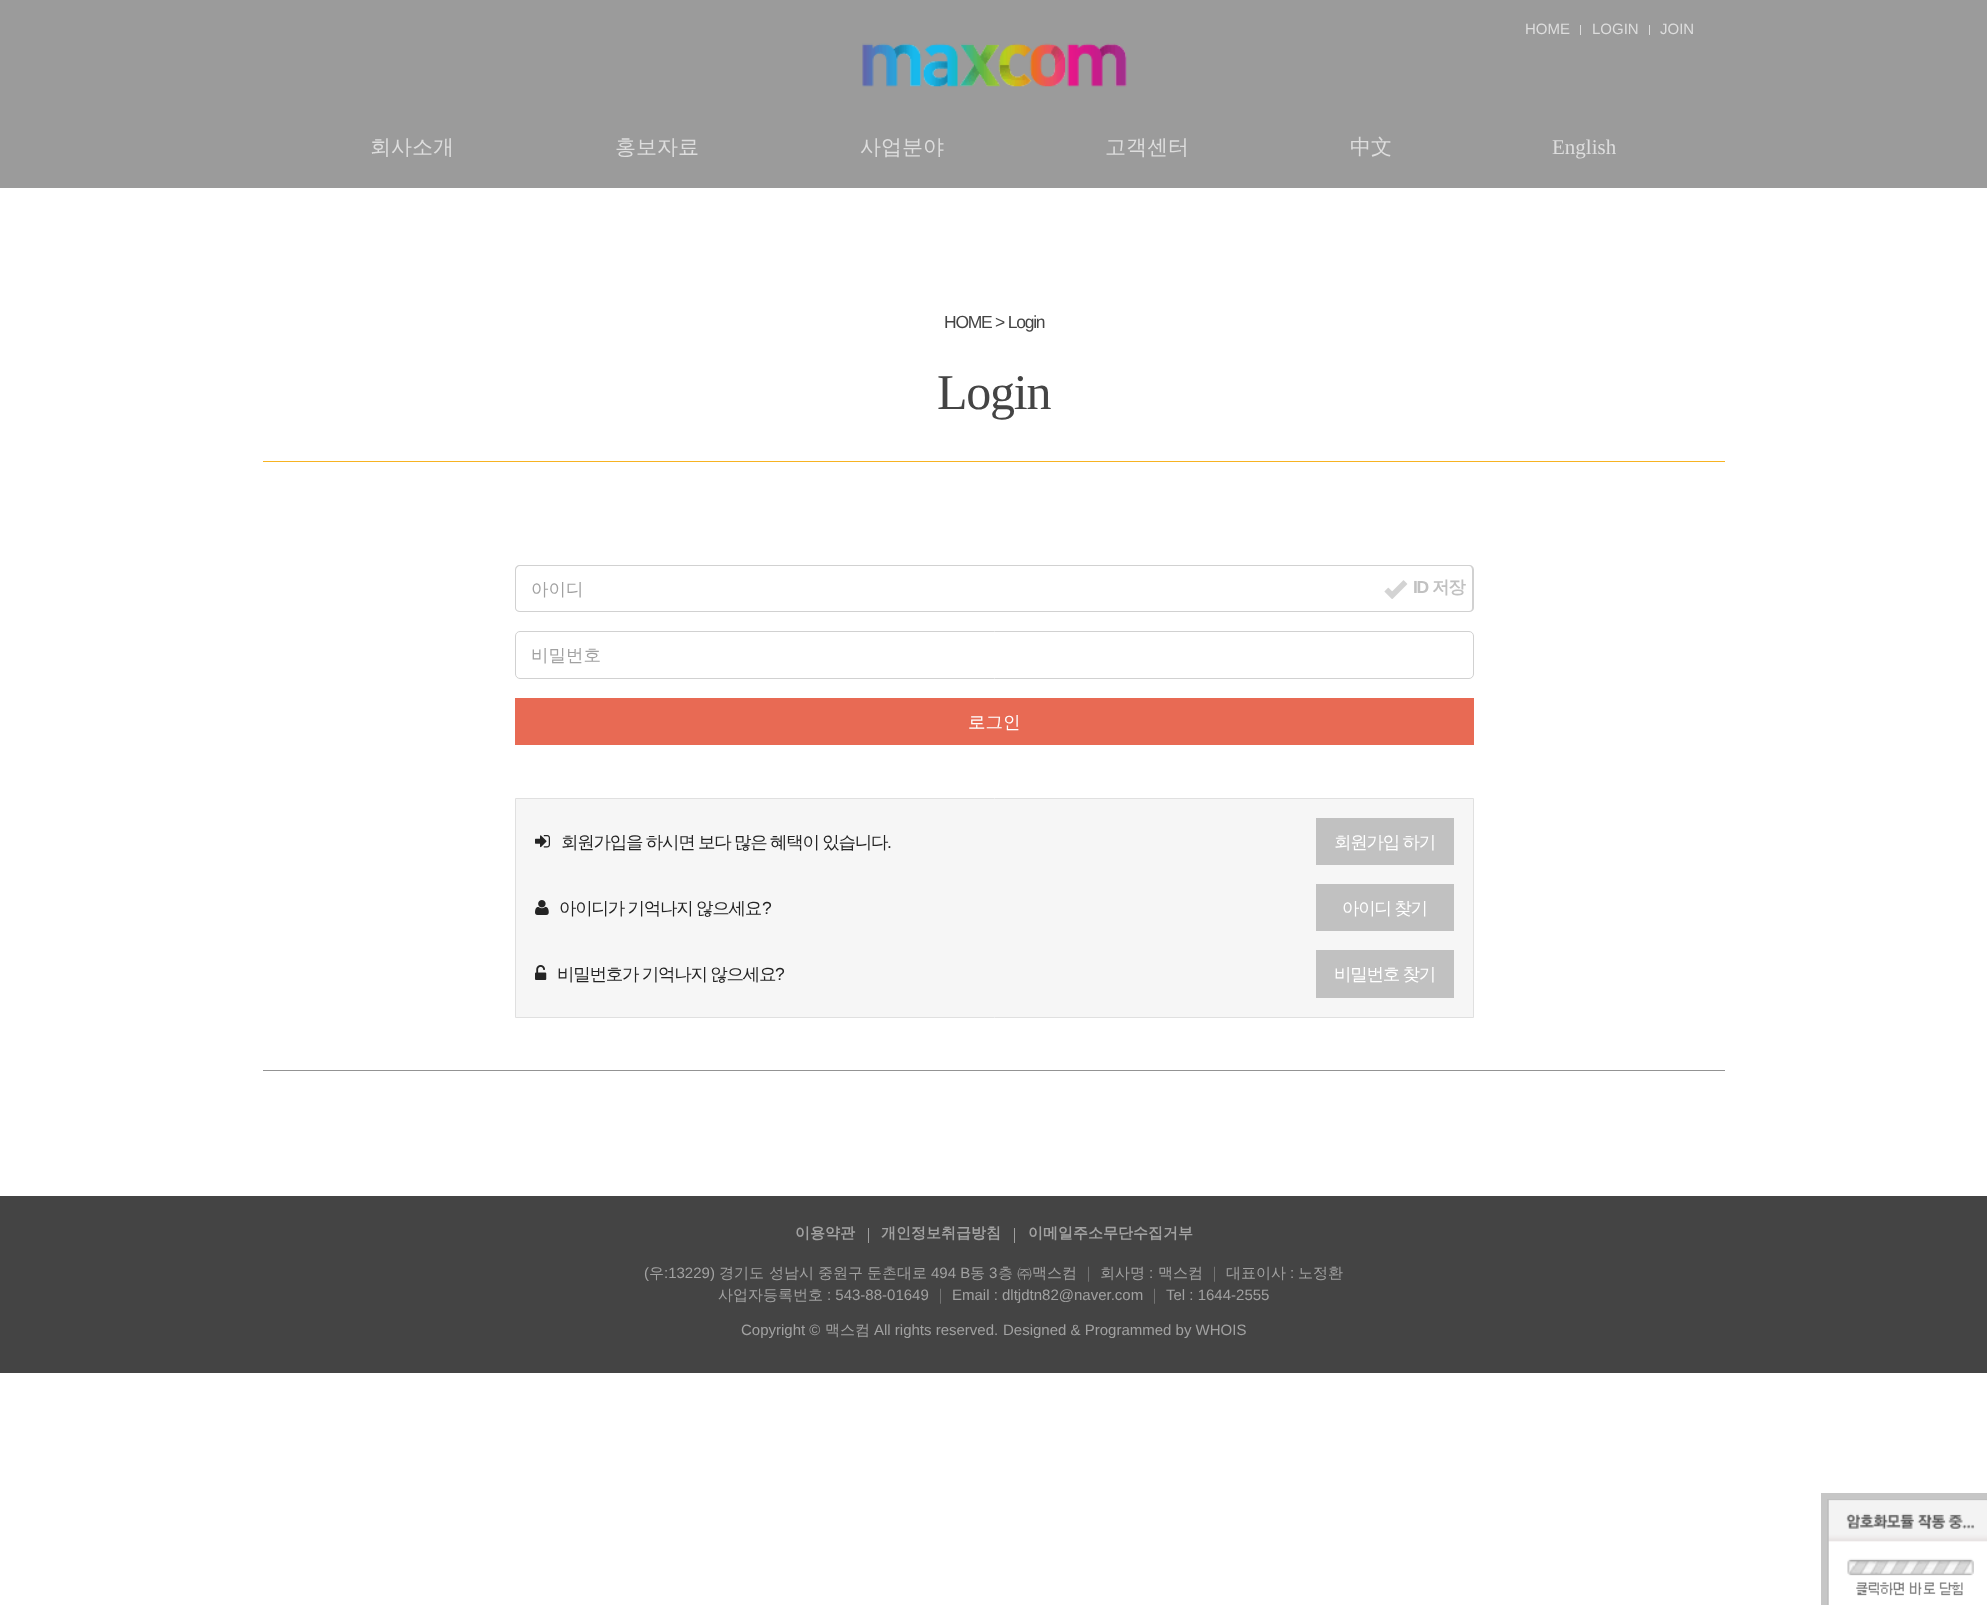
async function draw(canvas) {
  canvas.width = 1987
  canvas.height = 1605
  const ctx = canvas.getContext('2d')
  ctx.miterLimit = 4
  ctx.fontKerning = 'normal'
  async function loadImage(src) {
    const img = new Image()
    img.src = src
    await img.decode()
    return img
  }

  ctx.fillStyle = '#fff'
  ctx.fillRect(0, 0, 1987, 1605)
  ctx.fillStyle = '#9b9b9b'
  ctx.fillRect(0, 0, 1987, 188)
  ctx.font = '15px Liberation Sans'
  ctx.fillStyle = '#ddd'
  ctx.fillText('HOME', 1525, 34)
  ctx.fillRect(1580, 25, 1, 10)
  ctx.fillText('LOGIN', 1592, 34)
  ctx.fillRect(1649, 25, 1, 10)
  ctx.fillText('JOIN', 1660, 34)
  ctx.font = '500 21px WenQuanYi Zen Hei'
  ctx.fillText('회사소개', 370, 154)
  ctx.fillText('홍보자료', 615, 154)
  ctx.fillText('사업분야', 860, 154)
  ctx.fillText('고객센터', 1105, 154)
  ctx.fillText('中文', 1350, 154)
  ctx.font = '21px Liberation Serif'
  ctx.fillText('English', 1552, 154)
  ctx.drawImage(await loadImage('image0.png'), 862, 43, 265, 44)
  ctx.fillStyle = '#f7b322'
  ctx.fillRect(263, 461, 1462, 1)
  ctx.letterSpacing = '-1.25px'
  ctx.font = '17.5px Liberation Sans'
  ctx.fillStyle = '#444'
  ctx.fillText('HOME > Login', 944, 328)
  ctx.font = '50px Liberation Serif'
  ctx.fillText('Login', 937, 409)
  ctx.fillStyle = '#939393'
  ctx.fillRect(263, 1070, 1462, 1)
  ctx.fillStyle = '#d1d1d1'
  ctx.beginPath()
  ctx.moveTo(520, 565)
  ctx.lineTo(1374, 565)
  ctx.lineTo(1374, 612)
  ctx.lineTo(520, 612)
  ctx.bezierCurveTo(517, 612, 515, 610, 515, 608)
  ctx.lineTo(515, 570)
  ctx.bezierCurveTo(515, 567, 517, 565, 520, 565)
  ctx.closePath()
  ctx.moveTo(520, 566)
  ctx.lineTo(1374, 566)
  ctx.lineTo(1374, 611)
  ctx.lineTo(520, 611)
  ctx.bezierCurveTo(518, 611, 516, 610, 516, 608)
  ctx.lineTo(516, 570)
  ctx.bezierCurveTo(516, 568, 518, 566, 520, 566)
  ctx.closePath()
  ctx.fill('evenodd')
  ctx.letterSpacing = '0px'
  ctx.font = '500 17.5px WenQuanYi Zen Hei'
  ctx.fillStyle = '#a1a1a1'
  ctx.fillText('아이디', 531, 595)
  ctx.fillStyle = '#d1d1d1'
  ctx.beginPath()
  ctx.moveTo(1374, 565)
  ctx.lineTo(1469, 565)
  ctx.bezierCurveTo(1472, 565, 1474, 567, 1474, 570)
  ctx.lineTo(1474, 608)
  ctx.bezierCurveTo(1474, 610, 1472, 612, 1469, 612)
  ctx.lineTo(1374, 612)
  ctx.closePath()
  ctx.moveTo(1374, 566)
  ctx.lineTo(1469, 566)
  ctx.bezierCurveTo(1471, 566, 1472, 568, 1472, 570)
  ctx.lineTo(1472, 608)
  ctx.bezierCurveTo(1472, 610, 1471, 611, 1469, 611)
  ctx.lineTo(1374, 611)
  ctx.closePath()
  ctx.fill('evenodd')
  ctx.drawImage(await loadImage('image1.png'), 1384, 580, 24, 19)
  ctx.letterSpacing = '-1.25px'
  ctx.font = 'bold 17.5px Liberation Sans'
  ctx.fillStyle = '#c1c1c1'
  ctx.fillText('ID', 1413, 593)
  ctx.font = 'bold 17.5px WenQuanYi Zen Hei'
  ctx.fillText('저장', 1432, 593)
  ctx.beginPath()
  ctx.roundRect(515.5, 631.5, 958, 47, 4.5)
  ctx.strokeStyle = '#d1d1d1'
  ctx.stroke()
  ctx.letterSpacing = '0px'
  ctx.font = '500 17.5px WenQuanYi Zen Hei'
  ctx.fillStyle = '#a1a1a1'
  ctx.fillText('비밀번호', 531, 661)
  ctx.fillStyle = '#e86a54'
  ctx.fillRect(515, 698, 959, 47)
  ctx.fillStyle = '#fff'
  ctx.fillText('로그인', 968, 728)
  ctx.fillStyle = '#f6f6f6'
  ctx.beginPath()
  ctx.rect(515.5, 798.5, 958, 219)
  ctx.fill()
  ctx.strokeStyle = '#e0e0e0'
  ctx.stroke()
  ctx.drawImage(await loadImage('image2.png'), 535, 835, 15, 13)
  ctx.letterSpacing = '-1.25px'
  ctx.wordSpacing = '-0.5px'
  ctx.fillStyle = '#242424'
  ctx.fillText('회원가입을 하시면 보다 많은 혜택이 있습니다', 561, 848)
  ctx.wordSpacing = '0px'
  ctx.font = '17.5px Liberation Sans'
  ctx.fillText('.', 887, 848)
  ctx.fillStyle = '#c1c1c1'
  ctx.fillRect(1316, 818, 138, 47)
  ctx.wordSpacing = '-0.5px'
  ctx.font = '500 17.5px WenQuanYi Zen Hei'
  ctx.fillStyle = '#fff'
  ctx.fillText('회원가입 하기', 1334, 848)
  ctx.drawImage(await loadImage('image3.png'), 535, 900, 14, 15)
  ctx.fillStyle = '#242424'
  ctx.fillText('아이디가 기억나지 않으세요', 559, 914)
  ctx.wordSpacing = '0px'
  ctx.font = '17.5px Liberation Sans'
  ctx.fillText('?', 762, 914)
  ctx.fillStyle = '#c1c1c1'
  ctx.fillRect(1316, 884, 138, 47)
  ctx.wordSpacing = '-0.5px'
  ctx.font = '500 17.5px WenQuanYi Zen Hei'
  ctx.fillStyle = '#fff'
  ctx.fillText('아이디 찾기', 1342, 914)
  ctx.drawImage(await loadImage('image4.png'), 535, 965, 12, 15)
  ctx.fillStyle = '#242424'
  ctx.fillText('비밀번호가 기억나지 않으세요', 557, 980)
  ctx.wordSpacing = '0px'
  ctx.font = '17.5px Liberation Sans'
  ctx.fillText('?', 775, 980)
  ctx.fillStyle = '#c1c1c1'
  ctx.fillRect(1316, 950, 138, 48)
  ctx.wordSpacing = '-0.5px'
  ctx.font = '500 17.5px WenQuanYi Zen Hei'
  ctx.fillStyle = '#fff'
  ctx.fillText('비밀번호 찾기', 1334, 980)
  ctx.fillStyle = '#444'
  ctx.fillRect(0, 1196, 1987, 177)
  ctx.letterSpacing = '0px'
  ctx.wordSpacing = '0px'
  ctx.font = 'bold 15px WenQuanYi Zen Hei'
  ctx.fillStyle = '#a1a1a1'
  ctx.fillText('이용약관', 795, 1238)
  ctx.fillStyle = '#9f9f9f'
  ctx.fillRect(868, 1228, 1, 15)
  ctx.fillStyle = '#a1a1a1'
  ctx.fillText('개인정보취급방침', 881, 1238)
  ctx.fillStyle = '#9f9f9f'
  ctx.fillRect(1014, 1228, 1, 15)
  ctx.fillStyle = '#a1a1a1'
  ctx.fillText('이메일주소무단수집거부', 1028, 1238)
  ctx.font = '15px Liberation Sans'
  ctx.fillText('(', 644, 1278)
  ctx.font = '500 15px WenQuanYi Zen Hei'
  ctx.fillText('우', 649, 1278)
  ctx.font = '15px Liberation Sans'
  ctx.fillText(':13229)', 664, 1278)
  ctx.font = '500 15px WenQuanYi Zen Hei'
  ctx.fillText('경기도', 719, 1278)
  ctx.fillText('성남시', 769, 1278)
  ctx.fillText('중원구', 818, 1278)
  ctx.fillText('둔촌대로', 867, 1278)
  ctx.font = '15px Liberation Sans'
  ctx.fillText('494 B', 931, 1278)
  ctx.font = '500 15px WenQuanYi Zen Hei'
  ctx.fillText('동', 970, 1278)
  ctx.font = '15px Liberation Sans'
  ctx.fillText('3', 989, 1278)
  ctx.font = '500 15px WenQuanYi Zen Hei'
  ctx.fillText('층', 998, 1278)
  ctx.fillText('㈜맥스컴', 1017, 1278)
  ctx.fillStyle = '#787878'
  ctx.fillText('｜', 1081, 1278)
  ctx.fillStyle = '#a1a1a1'
  ctx.fillText('회사명', 1100, 1278)
  ctx.font = '15px Liberation Sans'
  ctx.fillText(':', 1149, 1278)
  ctx.font = '500 15px WenQuanYi Zen Hei'
  ctx.fillText('맥스컴', 1158, 1278)
  ctx.fillStyle = '#787878'
  ctx.fillText('｜', 1207, 1278)
  ctx.fillStyle = '#a1a1a1'
  ctx.fillText('대표이사', 1226, 1278)
  ctx.font = '15px Liberation Sans'
  ctx.fillText(':', 1290, 1278)
  ctx.font = '500 15px WenQuanYi Zen Hei'
  ctx.fillText('노정환', 1298, 1278)
  ctx.fillText('사업자등록번호', 718, 1300)
  ctx.font = '15px Liberation Sans'
  ctx.fillText(': 543-88-01649', 827, 1300)
  ctx.font = '500 15px WenQuanYi Zen Hei'
  ctx.fillStyle = '#787878'
  ctx.fillText('｜', 933, 1300)
  ctx.font = '15px Liberation Sans'
  ctx.fillStyle = '#a1a1a1'
  ctx.fillText('Email : dltjdtn82@naver.com', 952, 1300)
  ctx.font = '500 15px WenQuanYi Zen Hei'
  ctx.fillStyle = '#787878'
  ctx.fillText('｜', 1147, 1300)
  ctx.font = '15px Liberation Sans'
  ctx.fillStyle = '#a1a1a1'
  ctx.fillText('Tel : 1644-2555', 1166, 1300)
  ctx.fillText('Copyright ©', 741, 1335)
  ctx.font = '500 15px WenQuanYi Zen Hei'
  ctx.fillText('맥스컴', 825, 1335)
  ctx.font = '15px Liberation Sans'
  ctx.fillText('All rights reserved.', 874, 1335)
  ctx.fillText('Designed & Programmed by WHOIS', 1003, 1335)
  ctx.fillStyle = '#c6c6c6'
  ctx.fillRect(1821, 1493, 166, 112)
  ctx.drawImage(await loadImage('image5.png'), 1827, 1499, 160, 106)
}

draw(document.querySelector('canvas'))
